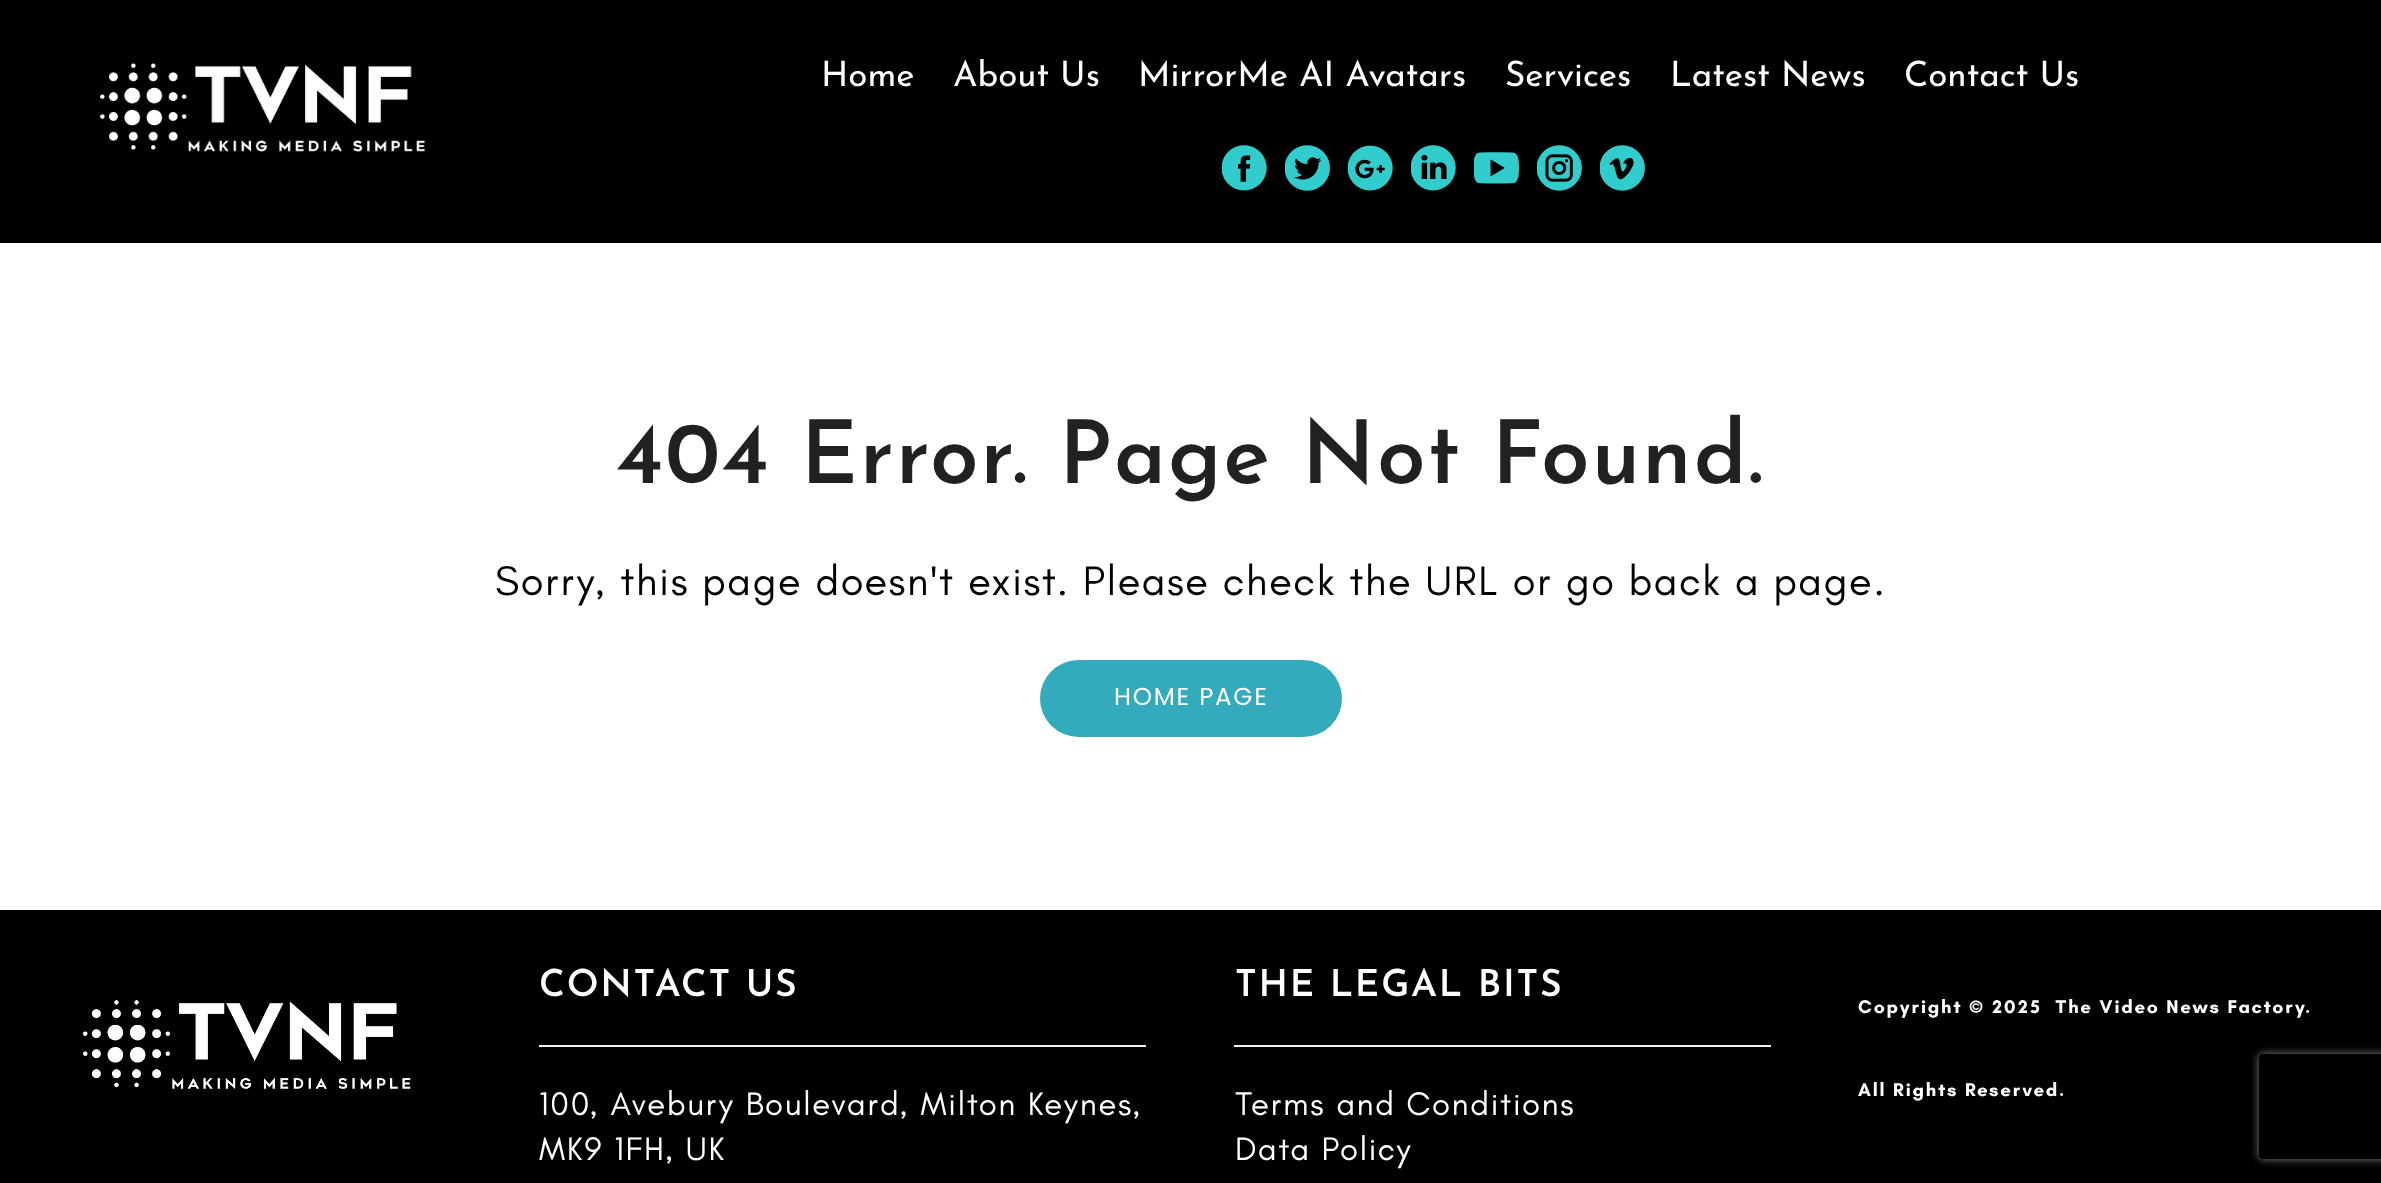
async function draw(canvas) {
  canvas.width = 2381
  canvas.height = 1183
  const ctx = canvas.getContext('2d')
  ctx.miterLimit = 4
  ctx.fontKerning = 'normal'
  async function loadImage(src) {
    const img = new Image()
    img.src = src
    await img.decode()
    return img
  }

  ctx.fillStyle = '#fff'
  ctx.fillRect(0, 0, 2381, 1183)
  ctx.fillStyle = '#000'
  ctx.fillRect(0, 0, 2381, 243)
  ctx.drawImage(await loadImage('image0.png'), 100, 63, 326, 89)
  ctx.font = '100 35px Josefin Sans'
  ctx.fillStyle = '#fff'
  ctx.fillText('Home', 821, 86)
  ctx.fillText('About Us', 953, 86)
  ctx.fillText('MirrorMe AI Avatars', 1138, 86)
  ctx.fillText('Services', 1505, 86)
  ctx.fillText('Latest News', 1670, 86)
  ctx.fillText('Contact Us', 1904, 86)
  ctx.drawImage(await loadImage('image1.png'), 1222, 145, 45, 46)
  ctx.drawImage(await loadImage('image2.png'), 1285, 145, 45, 46)
  ctx.drawImage(await loadImage('image3.png'), 1348, 145, 45, 46)
  ctx.drawImage(await loadImage('image4.png'), 1411, 145, 45, 46)
  ctx.drawImage(await loadImage('image5.png'), 1474, 152, 45, 32)
  ctx.drawImage(await loadImage('image6.png'), 1537, 145, 45, 46)
  ctx.drawImage(await loadImage('image7.png'), 1600, 145, 45, 46)
  ctx.letterSpacing = '1.75px'
  ctx.font = '100 87.5px "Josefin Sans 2"'
  ctx.fillStyle = '#212121'
  ctx.fillText('404 Error. Page Not Found.', 616, 483)
  ctx.font = '42px Teachers'
  ctx.fillStyle = '#000'
  ctx.fillText('Sorry, this page doesn\'t exist. Please check the URL or go back a page.', 495, 595)
  ctx.fillStyle = '#33abbc'
  ctx.beginPath()
  ctx.roundRect(1040, 660, 302, 77, 38.5)
  ctx.fill()
  ctx.font = '24.5px Poppins'
  ctx.fillStyle = '#fff'
  ctx.fillText('HOME PAGE', 1114, 705)
  ctx.fillStyle = '#000'
  ctx.fillRect(0, 910, 2381, 273)
  ctx.drawImage(await loadImage('image8.png'), 83, 1000, 328, 89)
  ctx.font = '100 37.25px "Josefin Sans 2"'
  ctx.fillStyle = '#fff'
  ctx.fillText('CONTACT US', 539, 996)
  ctx.fillStyle = '#eee'
  ctx.fillRect(539, 1045, 607, 2)
  ctx.font = '33.25px Teachers'
  ctx.fillStyle = '#fff'
  ctx.fillText('100, Avebury Boulevard, Milton Keynes,', 539, 1115)
  ctx.fillText('MK9 1FH, UK', 539, 1160)
  ctx.font = '100 37.25px "Josefin Sans 2"'
  ctx.fillText('THE LEGAL BITS', 1235, 996)
  ctx.fillStyle = '#eee'
  ctx.fillRect(1234, 1045, 537, 2)
  ctx.font = '33.25px Teachers'
  ctx.fillStyle = '#fff'
  ctx.fillText('Terms and Conditions', 1235, 1115)
  ctx.fillText('Data Policy', 1235, 1160)
  ctx.font = 'bold 18.7px Teachers'
  ctx.fillText('Copyright © 2025  The Video News Factory', 1858, 1013)
  ctx.fillText('.', 2305, 1013)
  ctx.fillText('All Rights Reserved.', 1858, 1096)
  ctx.save()
  ctx.beginPath()
  ctx.moveTo(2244, 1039)
  ctx.lineTo(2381, 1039)
  ctx.lineTo(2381, 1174)
  ctx.lineTo(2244, 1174)
  ctx.closePath()
  ctx.moveTo(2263, 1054)
  ctx.lineTo(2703, 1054)
  ctx.bezierCurveTo(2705, 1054, 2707, 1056, 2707, 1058)
  ctx.lineTo(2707, 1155)
  ctx.bezierCurveTo(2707, 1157, 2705, 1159, 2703, 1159)
  ctx.lineTo(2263, 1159)
  ctx.bezierCurveTo(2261, 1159, 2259, 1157, 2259, 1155)
  ctx.lineTo(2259, 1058)
  ctx.bezierCurveTo(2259, 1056, 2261, 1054, 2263, 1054)
  ctx.closePath()
  ctx.clip('evenodd')
  ctx.fillStyle = '#808080'
  ctx.filter = 'blur(4.5px)'
  ctx.beginPath()
  ctx.roundRect(2259, 1054, 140, 105, 4)
  ctx.fill()
  ctx.filter = 'none'
  ctx.restore()
}

draw(document.querySelector('canvas'))
